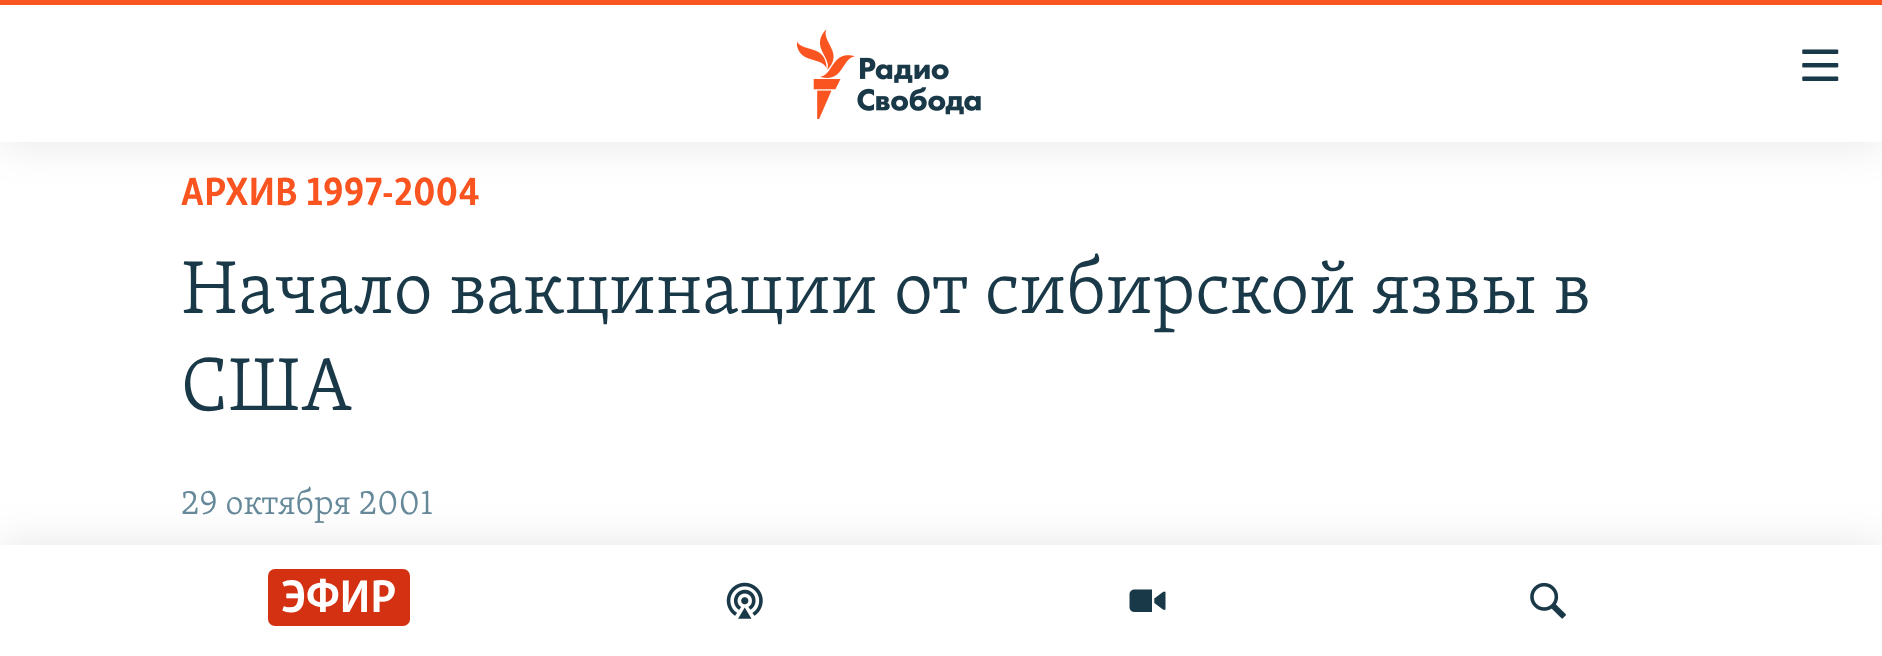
async function draw(canvas) {
  canvas.width = 1882
  canvas.height = 656
  const ctx = canvas.getContext('2d')
  ctx.miterLimit = 4
  ctx.fontKerning = 'normal'
  async function loadImage(src) {
    const img = new Image()
    img.src = src
    await img.decode()
    return img
  }

  ctx.fillStyle = '#fff'
  ctx.fillRect(0, 0, 1882, 656)
  ctx.font = 'bold 40.5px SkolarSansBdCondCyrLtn'
  ctx.fillStyle = '#fa5420'
  ctx.fillText('АРХИВ 1997-2004', 181, 205)
  ctx.font = '300 77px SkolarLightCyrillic'
  ctx.fillStyle = '#1a3948'
  ctx.fillText('Начало вакцинации от сибирской язвы в', 181, 313)
  ctx.fillText('США', 181, 410)
  ctx.font = '300 35.5px SkolarLightCyrillic'
  ctx.fillStyle = '#678a9b'
  ctx.fillText('29 октября 2001', 181, 514)
  ctx.fillStyle = '#0000001a'
  ctx.filter = 'blur(22.5px)'
  ctx.beginPath()
  ctx.rect(0, 0, 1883, 142)
  ctx.fill()
  ctx.filter = 'none'
  ctx.fillStyle = '#fff'
  ctx.fillRect(0, 5, 1882, 137)
  ctx.fillStyle = '#fa5420'
  ctx.fillRect(0, 0, 1882, 5)
  ctx.drawImage(await loadImage('image0.png'), 797, 29, 184, 90)
  ctx.drawImage(await loadImage('image1.png'), 1802, 49, 37, 32)
  ctx.fillStyle = '#0000001a'
  ctx.filter = 'blur(22.5px)'
  ctx.beginPath()
  ctx.rect(0, 545, 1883, 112)
  ctx.fill()
  ctx.filter = 'none'
  ctx.fillStyle = '#fff'
  ctx.fillRect(0, 545, 1882, 111)
  ctx.fillStyle = '#d33111'
  ctx.beginPath()
  ctx.roundRect(268, 569, 142, 57, 7)
  ctx.fill()
  ctx.font = 'bold 47px SkolarSansBdCondCyrLtn'
  ctx.fillStyle = '#fff'
  ctx.fillText('ЭФИР', 281, 612)
  ctx.drawImage(await loadImage('image2.png'), 726, 582, 37, 37)
  ctx.drawImage(await loadImage('image3.png'), 1129, 589, 37, 23)
  ctx.drawImage(await loadImage('image4.png'), 1530, 582, 36, 37)
}

draw(document.querySelector('canvas'))
